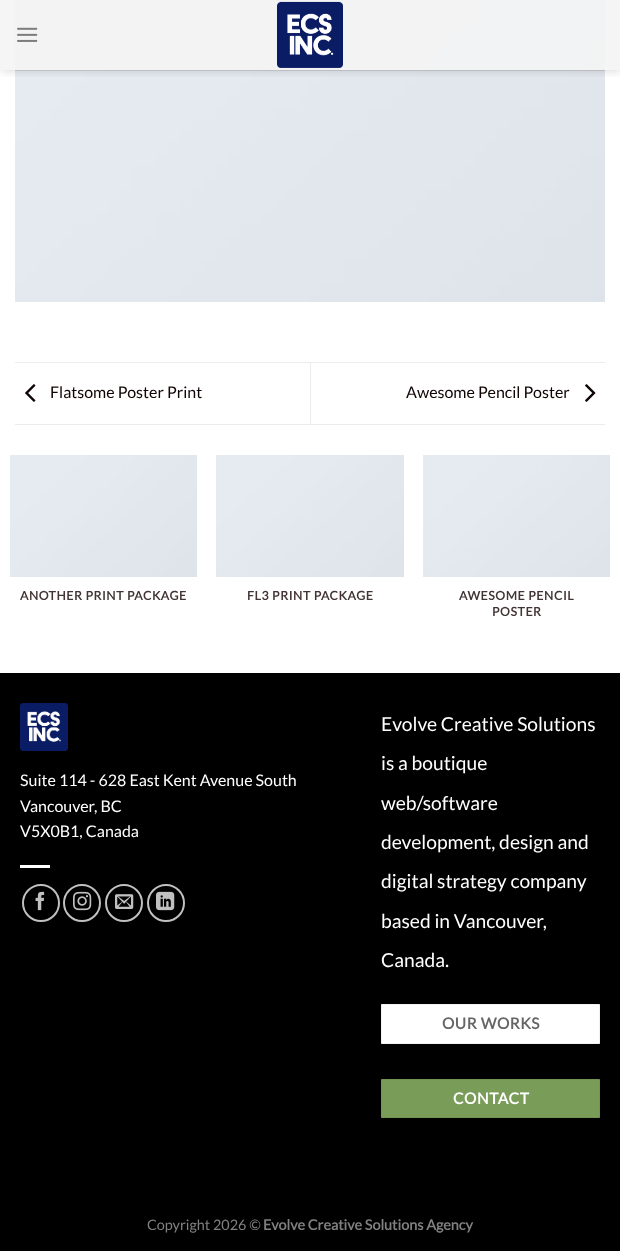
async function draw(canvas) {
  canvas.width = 620
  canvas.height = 1251
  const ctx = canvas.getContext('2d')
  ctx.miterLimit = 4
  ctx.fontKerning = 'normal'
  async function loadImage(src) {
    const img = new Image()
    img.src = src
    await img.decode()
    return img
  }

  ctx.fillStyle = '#fff'
  ctx.fillRect(0, 0, 620, 1251)
  ctx.drawImage(await loadImage('image2.png'), 15, 0, 590, 302)
  ctx.save()
  ctx.beginPath()
  ctx.rect(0, 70, 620, 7)
  ctx.clip()
  ctx.fillStyle = '#00000026'
  ctx.filter = 'blur(5px)'
  ctx.beginPath()
  ctx.rect(1, 1, 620, 70)
  ctx.fill()
  ctx.filter = 'none'
  ctx.restore()
  ctx.fillStyle = '#f4f4f4e6'
  ctx.fillRect(0, 0, 620, 70)
  ctx.drawImage(await loadImage('image0.png'), 17, 27, 21, 15)
  ctx.drawImage(await loadImage('image1.png'), 277, 1, 66, 67)
  ctx.fillStyle = '#1004041a'
  ctx.fillRect(15, 70, 590, 1)
  ctx.fillStyle = '#ececec'
  ctx.fillRect(15, 362, 590, 1)
  ctx.fillRect(15, 424, 590, 1)
  ctx.drawImage(await loadImage('image3.png'), 25, 384, 11, 18)
  ctx.font = '16px Lato'
  ctx.fillStyle = '#100404'
  ctx.fillText('Flatsome Poster Print', 50, 398)
  ctx.fillStyle = '#ececec'
  ctx.fillRect(310, 363, 1, 61)
  ctx.fillStyle = '#100404'
  ctx.fillText('Awesome Pencil Poster', 406, 398)
  ctx.drawImage(await loadImage('image4.png'), 585, 384, 11, 18)
  ctx.drawImage(await loadImage('image5.png'), 10, 455, 187, 122)
  ctx.letterSpacing = '0.6px'
  ctx.font = 'bold 12.25px Lato'
  ctx.fillStyle = '#423434'
  ctx.fillText('ANOTHER PRINT PACKAGE', 20, 600)
  ctx.drawImage(await loadImage('image6.png'), 216, 455, 188, 122)
  ctx.fillText('FL3 PRINT PACKAGE', 247, 600)
  ctx.drawImage(await loadImage('image5.png'), 423, 455, 187, 122)
  ctx.fillText('AWESOME PENCIL', 459, 600)
  ctx.fillText('POSTER', 492, 616)
  ctx.fillStyle = '#000'
  ctx.fillRect(0, 673, 620, 578)
  ctx.drawImage(await loadImage('image7.png'), 20, 703, 48, 48)
  ctx.letterSpacing = '0px'
  ctx.font = '16px Lato'
  ctx.fillStyle = '#fff'
  ctx.fillText('Suite 114 - 628 East Kent Avenue South', 20, 786)
  ctx.fillText('Vancouver, BC', 20, 812)
  ctx.fillText('V5X0B1, Canada', 20, 837)
  ctx.fillRect(20, 865, 30, 3)
  ctx.beginPath()
  ctx.arc(41, 903, 18, 0, 2 * Math.PI)
  ctx.strokeStyle = '#c0c0c0'
  ctx.lineWidth = 2
  ctx.stroke()
  ctx.drawImage(await loadImage('image8.png'), 35, 891, 10, 20)
  ctx.beginPath()
  ctx.arc(82, 903, 18, 0, 2 * Math.PI)
  ctx.stroke()
  ctx.drawImage(await loadImage('image9.png'), 73, 891, 19, 20)
  ctx.beginPath()
  ctx.arc(124, 903, 18, 0, 2 * Math.PI)
  ctx.stroke()
  ctx.drawImage(await loadImage('image10.png'), 115, 894, 19, 15)
  ctx.beginPath()
  ctx.arc(166, 903, 18, 0, 2 * Math.PI)
  ctx.stroke()
  ctx.drawImage(await loadImage('image11.png'), 156, 891, 19, 20)
  ctx.font = '19.25px Lato'
  ctx.fillText('Evolve Creative Solutions', 381, 731)
  ctx.fillText('is a boutique', 381, 770)
  ctx.fillText('web/software', 381, 810)
  ctx.fillText('development, design and', 381, 849)
  ctx.fillText('digital strategy company', 381, 888)
  ctx.fillText('based in Vancouver,', 381, 928)
  ctx.fillText('Canada.', 381, 967)
  ctx.beginPath()
  ctx.rect(381.5, 1004.5, 218, 39)
  ctx.fill()
  ctx.strokeStyle = '#f2f2f2'
  ctx.lineWidth = 1
  ctx.stroke()
  ctx.letterSpacing = '0.5px'
  ctx.font = 'bold 15.5px Lato'
  ctx.fillStyle = '#666'
  ctx.fillText('OUR WORKS', 442, 1029)
  ctx.fillStyle = '#7a9c59'
  ctx.beginPath()
  ctx.rect(381.5, 1079.5, 218, 38)
  ctx.fill()
  ctx.strokeStyle = '#749455'
  ctx.stroke()
  ctx.fillStyle = '#fff'
  ctx.fillText('CONTACT', 453, 1104)
  ctx.letterSpacing = '0px'
  ctx.font = '14.4px Lato'
  ctx.fillStyle = '#808080'
  ctx.fillText('Copyright 2026 ©', 147, 1230)
  ctx.font = 'bold 14.4px Lato'
  ctx.fillText('Evolve Creative Solutions Agency', 263, 1230)
}

draw(document.querySelector('canvas'))
